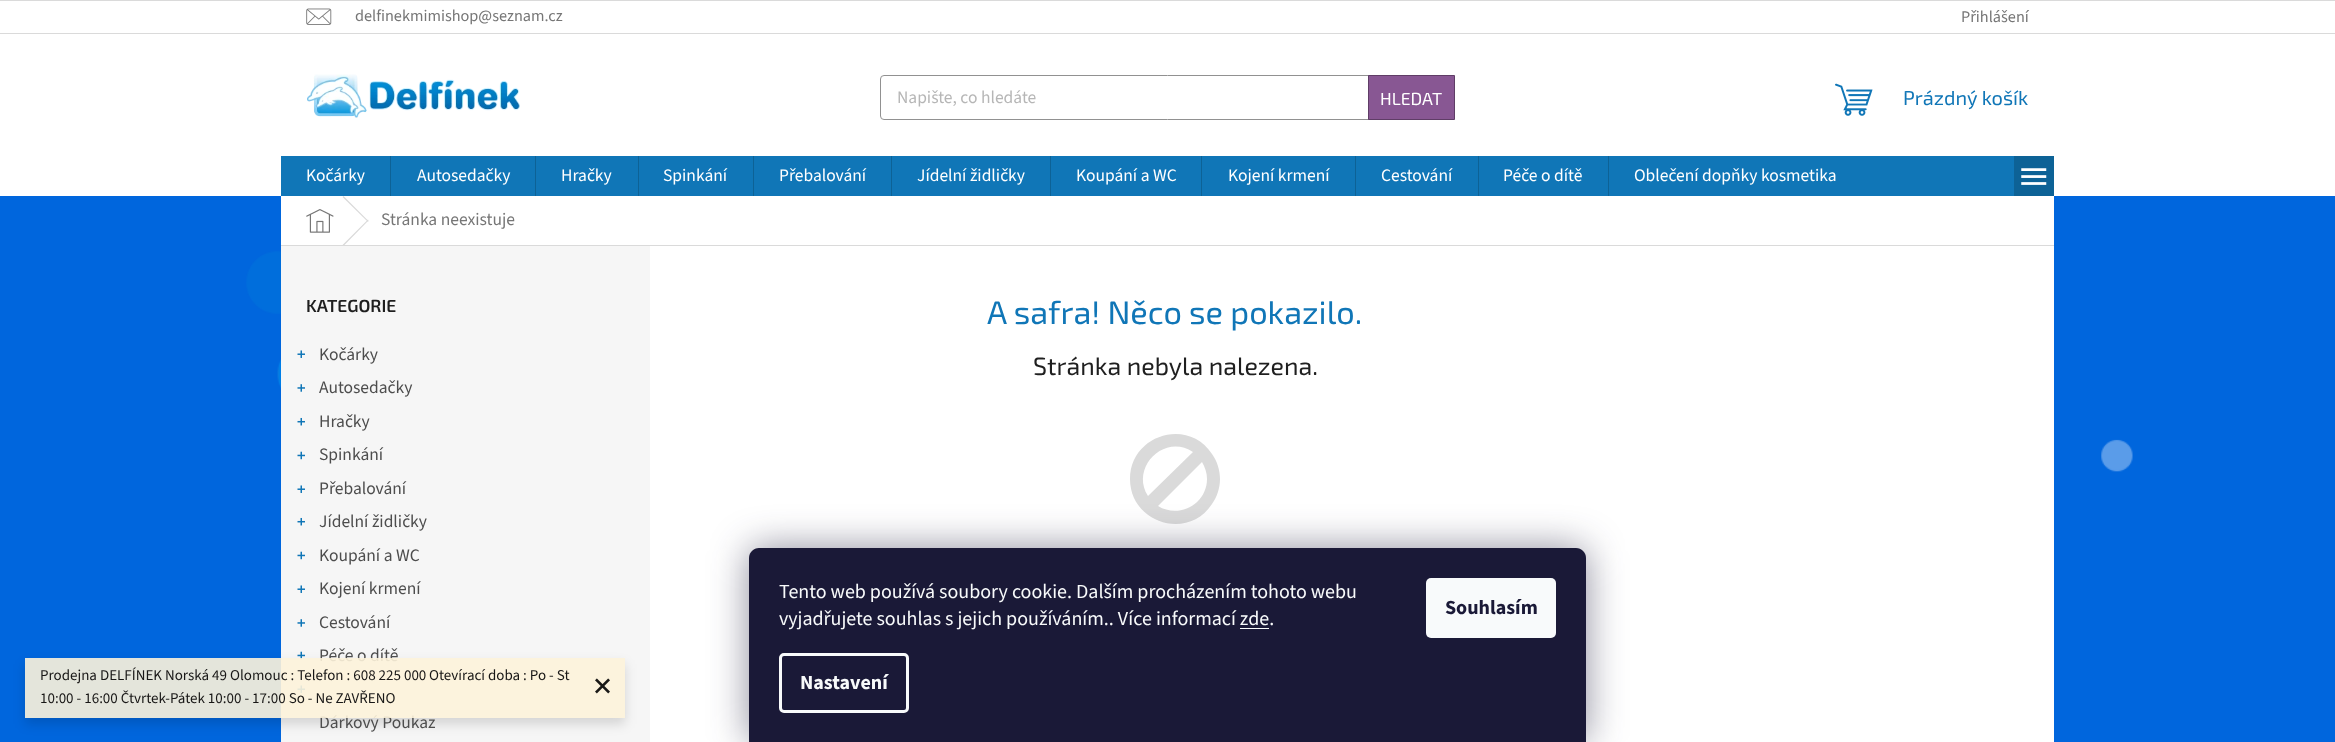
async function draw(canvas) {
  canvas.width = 2335
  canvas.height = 742
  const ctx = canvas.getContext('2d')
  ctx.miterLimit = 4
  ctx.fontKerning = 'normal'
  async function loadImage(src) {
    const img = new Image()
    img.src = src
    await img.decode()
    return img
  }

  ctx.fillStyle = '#06d'
  ctx.fillRect(0, 0, 2335, 742)
  ctx.drawImage(await loadImage('image0.png'), 246, 251, 1887, 221)
  ctx.fillStyle = '#fff'
  ctx.fillRect(0, 1, 2335, 32)
  ctx.fillStyle = '#dadada'
  ctx.fillRect(0, 0, 2335, 1)
  ctx.fillRect(0, 33, 2335, 1)
  ctx.drawImage(await loadImage('image1.png'), 306, 8, 26, 17)
  ctx.font = '16.25px "Source Sans 3"'
  ctx.fillStyle = '#767676'
  ctx.fillText('delfinekmimishop@seznam.cz', 355, 21)
  ctx.fillText('Přihlášení', 1961, 22)
  ctx.fillStyle = '#fff'
  ctx.fillRect(0, 34, 2335, 162)
  ctx.drawImage(await loadImage('image2.png'), 307, 74, 213, 44)
  ctx.beginPath()
  ctx.roundRect(880.5, 75.5, 574, 44, 3.5)
  ctx.strokeStyle = '#919191'
  ctx.stroke()
  ctx.font = '17.5px "Source Sans 3"'
  ctx.fillStyle = '#b6b6b6'
  ctx.fillText('Napište, co hledáte', 897, 103)
  ctx.fillStyle = '#885793'
  ctx.beginPath()
  ctx.rect(1368.5, 75.5, 86, 44)
  ctx.fill()
  ctx.strokeStyle = '#5f3d66'
  ctx.stroke()
  ctx.font = '17.5px "Exo 2"'
  ctx.fillStyle = '#fff'
  ctx.fillText('HLEDAT', 1380, 105)
  ctx.drawImage(await loadImage('image3.png'), 1835, 83, 38, 33)
  ctx.font = '20px "Exo 2"'
  ctx.fillStyle = '#1076b7'
  ctx.fillText('Prázdný košík', 1903, 105)
  ctx.fillRect(281, 156, 1733, 40)
  ctx.font = '17.5px "Source Sans 3"'
  ctx.fillStyle = '#fff'
  ctx.fillText('Kočárky', 306, 181)
  ctx.fillStyle = '#0d6296'
  ctx.fillRect(390, 156, 1, 40)
  ctx.fillStyle = '#fff'
  ctx.fillText('Autosedačky', 417, 181)
  ctx.fillStyle = '#0d6296'
  ctx.fillRect(535, 156, 1, 40)
  ctx.fillStyle = '#fff'
  ctx.fillText('Hračky', 561, 181)
  ctx.fillStyle = '#0d6296'
  ctx.fillRect(638, 156, 1, 40)
  ctx.fillStyle = '#fff'
  ctx.fillText('Spinkání', 663, 181)
  ctx.fillStyle = '#0d6296'
  ctx.fillRect(753, 156, 1, 40)
  ctx.fillStyle = '#fff'
  ctx.fillText('Přebalování', 779, 181)
  ctx.fillStyle = '#0d6296'
  ctx.fillRect(891, 156, 1, 40)
  ctx.fillStyle = '#fff'
  ctx.fillText('Jídelní židličky', 917, 181)
  ctx.fillStyle = '#0d6296'
  ctx.fillRect(1050, 156, 1, 40)
  ctx.fillStyle = '#fff'
  ctx.fillText('Koupání a WC', 1076, 181)
  ctx.fillStyle = '#0d6296'
  ctx.fillRect(1201, 156, 1, 40)
  ctx.fillStyle = '#fff'
  ctx.fillText('Kojení krmení', 1228, 181)
  ctx.fillStyle = '#0d6296'
  ctx.fillRect(1355, 156, 1, 40)
  ctx.fillStyle = '#fff'
  ctx.fillText('Cestování', 1381, 181)
  ctx.fillStyle = '#0d6296'
  ctx.fillRect(1478, 156, 1, 40)
  ctx.fillStyle = '#fff'
  ctx.fillText('Péče o dítě', 1503, 181)
  ctx.fillStyle = '#0d6296'
  ctx.fillRect(1608, 156, 1, 40)
  ctx.fillStyle = '#fff'
  ctx.fillText('Oblečení dopňky kosmetika', 1634, 181)
  ctx.fillStyle = '#0d6296'
  ctx.fillRect(2014, 156, 40, 40)
  ctx.drawImage(await loadImage('image4.png'), 2021, 168, 26, 17)
  ctx.fillStyle = '#fff'
  ctx.fillRect(281, 196, 1773, 49)
  ctx.fillStyle = '#dadada'
  ctx.fillRect(281, 245, 1773, 1)
  ctx.drawImage(await loadImage('image5.png'), 306, 209, 28, 24)
  ctx.beginPath()
  ctx.moveTo(342.5, 197)
  ctx.lineTo(343.5, 196)
  ctx.lineTo(368.5, 221)
  ctx.lineTo(368, 222)
  ctx.closePath()
  ctx.fill()
  ctx.beginPath()
  ctx.moveTo(368, 219.5)
  ctx.lineTo(368.5, 220.5)
  ctx.lineTo(343.5, 246)
  ctx.lineTo(342.5, 245)
  ctx.closePath()
  ctx.fill()
  ctx.fillStyle = '#767676'
  ctx.fillText('Stránka neexistuje', 381, 225)
  ctx.fillStyle = '#f6f6f6'
  ctx.fillRect(281, 246, 369, 496)
  ctx.drawImage(await loadImage('image10.png'), 297, 651, 8, 9)
  ctx.drawImage(await loadImage('image7.png'), 297, 685, 8, 8)
  ctx.save()
  ctx.beginPath()
  ctx.moveTo(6, 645)
  ctx.lineTo(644, 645)
  ctx.lineTo(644, 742)
  ctx.lineTo(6, 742)
  ctx.closePath()
  ctx.moveTo(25, 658)
  ctx.lineTo(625, 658)
  ctx.lineTo(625, 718)
  ctx.lineTo(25, 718)
  ctx.closePath()
  ctx.clip('evenodd')
  ctx.fillStyle = '#00000024'
  ctx.filter = 'blur(6px)'
  ctx.beginPath()
  ctx.rect(25, 664, 600, 60)
  ctx.fill()
  ctx.filter = 'none'
  ctx.restore()
  ctx.fillStyle = '#4d4d4d'
  ctx.fillText('Péče o dítě', 319, 661)
  ctx.fillText('Dárkový Poukaz', 319, 728)
  ctx.fillStyle = '#fdf3dae6'
  ctx.fillRect(25, 658, 600, 60)
  ctx.font = '15px "Source Sans 3"'
  ctx.fillStyle = '#181716'
  ctx.fillText('Prodejna DELFÍNEK Norská 49 Olomouc : Telefon : 608 225 000', 40, 680)
  ctx.fillText('Otevírací doba : Po - St', 429, 680)
  ctx.fillText('10:00 - 16:00 Čtvrtek-Pátek 10:00 - 17:00 So - Ne ZAVŘENO', 40, 703)
  ctx.drawImage(await loadImage('image6.png'), 595, 678, 15, 16)
  ctx.fillStyle = '#fff'
  ctx.fillRect(650, 246, 1404, 496)
  ctx.font = '600 17.5px "Exo 2"'
  ctx.fillStyle = '#1f1f1f'
  ctx.fillText('KATEGORIE', 306, 312)
  ctx.drawImage(await loadImage('image7.png'), 297, 350, 8, 8)
  ctx.font = '17.5px "Source Sans 3"'
  ctx.fillStyle = '#4d4d4d'
  ctx.fillText('Kočárky', 319, 360)
  ctx.drawImage(await loadImage('image8.png'), 297, 384, 8, 8)
  ctx.fillText('Autosedačky', 319, 393)
  ctx.drawImage(await loadImage('image9.png'), 297, 417, 8, 9)
  ctx.fillText('Hračky', 319, 427)
  ctx.drawImage(await loadImage('image10.png'), 297, 451, 8, 9)
  ctx.fillText('Spinkání', 319, 460)
  ctx.drawImage(await loadImage('image7.png'), 297, 485, 8, 8)
  ctx.fillText('Přebalování', 319, 494)
  ctx.drawImage(await loadImage('image9.png'), 297, 517, 8, 9)
  ctx.fillText('Jídelní židličky', 319, 527)
  ctx.drawImage(await loadImage('image10.png'), 297, 551, 8, 9)
  ctx.fillText('Koupání a WC', 319, 561)
  ctx.drawImage(await loadImage('image7.png'), 297, 585, 8, 8)
  ctx.fillText('Kojení krmení', 319, 594)
  ctx.drawImage(await loadImage('image8.png'), 297, 619, 8, 8)
  ctx.fillText('Cestování', 319, 628)
  ctx.font = '32.5px "Exo 2"'
  ctx.fillStyle = '#1076b7'
  ctx.fillText('A safra! Něco se pokazilo.', 987, 324)
  ctx.font = '25px "Exo 2"'
  ctx.fillStyle = '#1f1f1f'
  ctx.fillText('Stránka nebyla nalezena.', 1033, 375)
  ctx.fillStyle = '#dadada'
  ctx.beginPath()
  ctx.moveTo(1207, 479)
  ctx.bezierCurveTo(1207, 473, 1205, 467, 1202, 462)
  ctx.lineTo(1158, 506)
  ctx.bezierCurveTo(1179, 519, 1207, 504, 1207, 479)
  ctx.closePath()
  ctx.moveTo(1148, 496)
  ctx.lineTo(1193, 452)
  ctx.bezierCurveTo(1164, 433, 1130, 468, 1148, 496)
  ctx.closePath()
  ctx.moveTo(1220, 479)
  ctx.bezierCurveTo(1220, 488, 1217, 497, 1212, 504)
  ctx.bezierCurveTo(1188, 541, 1130, 523, 1130, 479)
  ctx.bezierCurveTo(1130, 435, 1188, 417, 1212, 454)
  ctx.bezierCurveTo(1217, 461, 1220, 470, 1220, 479)
  ctx.closePath()
  ctx.fill()
  ctx.fillStyle = '#1b193980'
  ctx.filter = 'blur(19px)'
  ctx.beginPath()
  ctx.roundRect(749, 548, 837, 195, 10)
  ctx.fill()
  ctx.filter = 'none'
  ctx.fillStyle = '#1a1937'
  ctx.beginPath()
  ctx.moveTo(759, 548)
  ctx.lineTo(1576, 548)
  ctx.bezierCurveTo(1581.5, 548, 1586, 552.5, 1586, 558)
  ctx.lineTo(1586, 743)
  ctx.lineTo(749, 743)
  ctx.lineTo(749, 558)
  ctx.bezierCurveTo(749, 552.5, 753.5, 548, 759, 548)
  ctx.closePath()
  ctx.fill()
  ctx.font = '20px "Source Sans 3"'
  ctx.fillStyle = '#f8fafb'
  ctx.fillText('Tento web používá soubory cookie. Dalším procházením tohoto webu', 779, 598)
  ctx.fillText('vyjadřujete souhlas s jejich používáním.. Více informací zde.', 779, 625)
  ctx.fillRect(1240, 628, 29, 1)
  ctx.beginPath()
  ctx.roundRect(780.5, 654.5, 127, 57, 3.5)
  ctx.strokeStyle = '#f8fafb'
  ctx.lineWidth = 3
  ctx.stroke()
  ctx.font = 'bold 20px "Source Sans 3"'
  ctx.fillText('Nastavení', 800, 689)
  ctx.beginPath()
  ctx.roundRect(1426, 578, 130, 60, 5)
  ctx.fill()
  ctx.fillStyle = '#1a1937'
  ctx.fillText('Souhlasím', 1445, 614)
}

draw(document.querySelector('canvas'))
